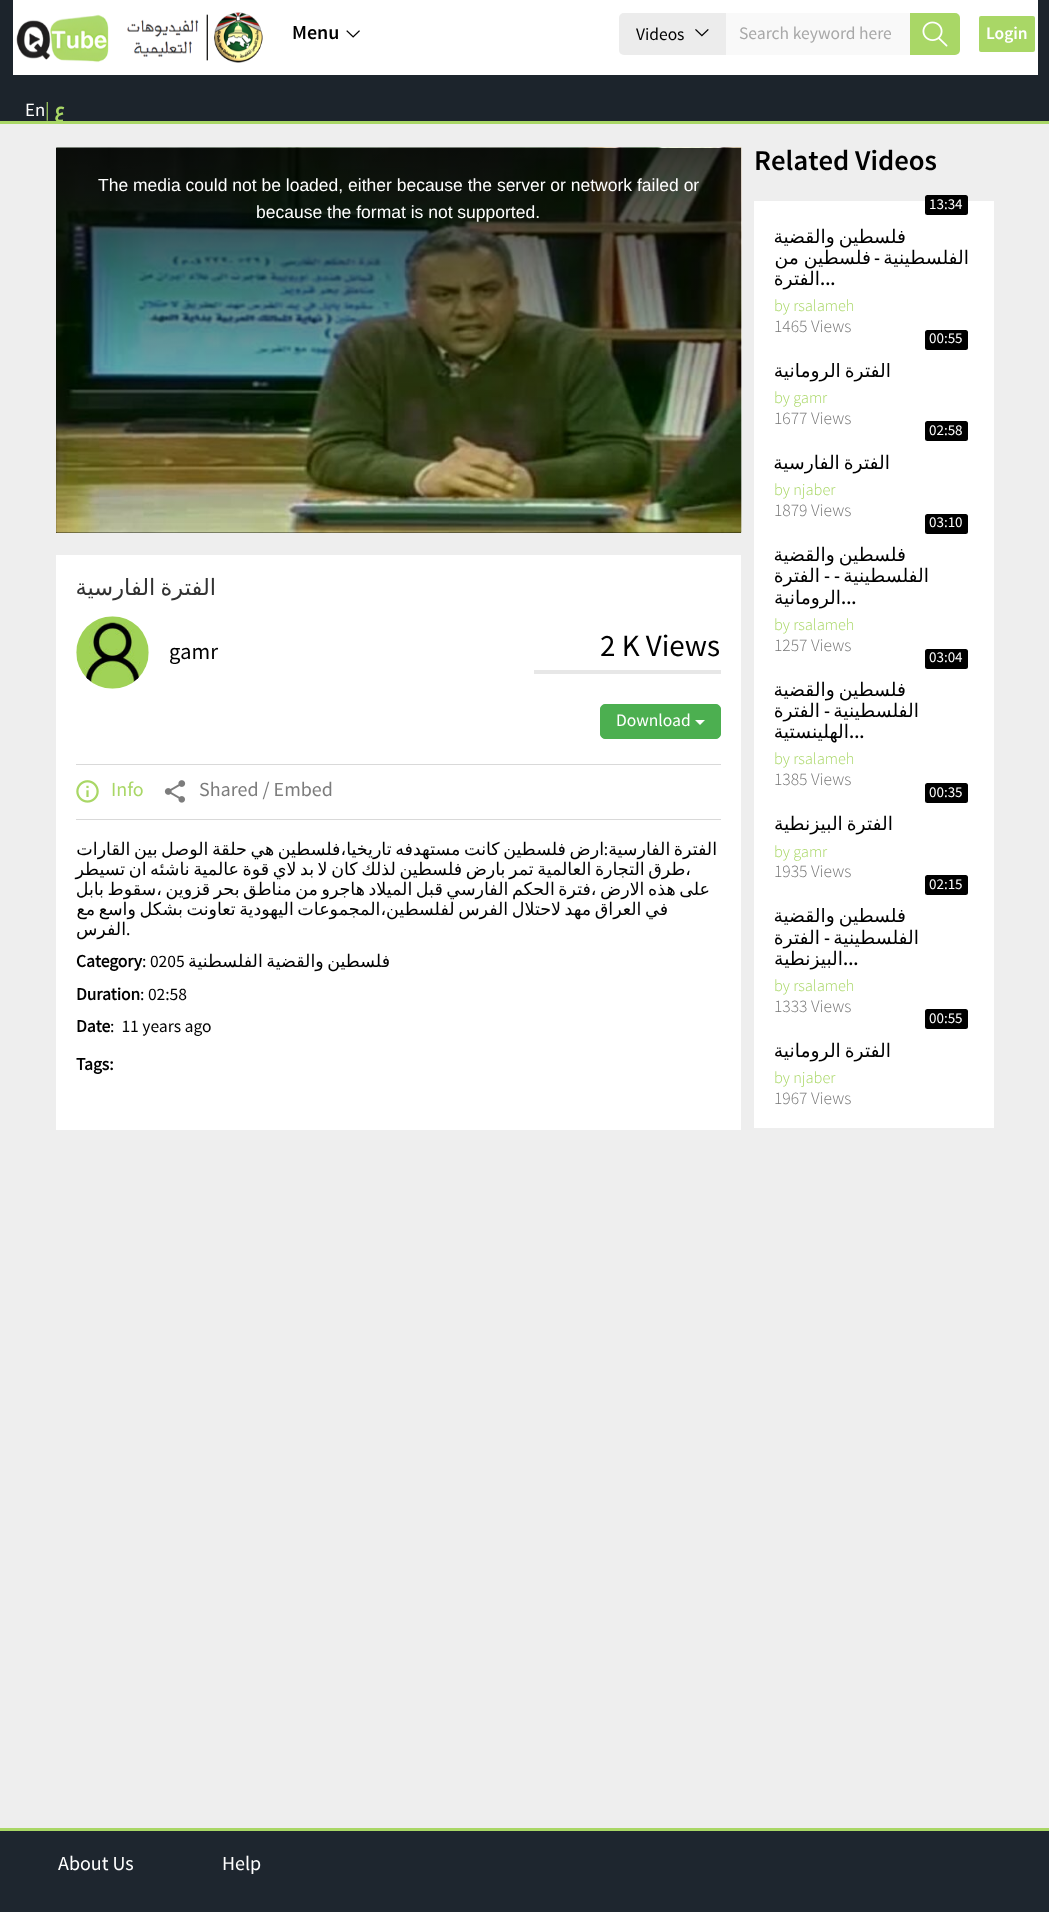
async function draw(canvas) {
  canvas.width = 1049
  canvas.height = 1912
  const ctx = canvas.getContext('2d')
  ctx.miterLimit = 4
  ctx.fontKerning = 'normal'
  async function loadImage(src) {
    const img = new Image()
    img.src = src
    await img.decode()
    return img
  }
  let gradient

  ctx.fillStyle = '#eee'
  ctx.fillRect(0, 0, 1049, 1912)
  ctx.fillStyle = '#1c242c'
  ctx.fillRect(0, 0, 1049, 121)
  ctx.fillStyle = '#a9d766'
  ctx.fillRect(0, 121, 1049, 3)
  ctx.fillStyle = '#fff'
  ctx.fillRect(13, 0, 1025, 75)
  ctx.fillStyle = '#a9d766'
  ctx.beginPath()
  ctx.roundRect(977.5, 14.5, 59, 39, 3.5)
  ctx.fill()
  ctx.strokeStyle = '#fff'
  ctx.lineWidth = 3
  ctx.stroke()
  ctx.font = '600 17.5px Source Sans Pro'
  ctx.fillStyle = '#fff'
  ctx.fillText('Login', 986, 39)
  ctx.fillStyle = '#f9f9f9'
  ctx.beginPath()
  ctx.roundRect(619, 13, 341, 42, 5)
  ctx.fill()
  ctx.fillStyle = '#a9d766'
  ctx.beginPath()
  ctx.roundRect(910, 13, 50, 42, [0, 5, 5, 0])
  ctx.fill()
  ctx.drawImage(await loadImage('image0.png'), 922, 21, 26, 26)
  ctx.font = '17.5px Source Sans Pro'
  ctx.fillStyle = '#a8a8a8'
  ctx.fillText('Search keyword here', 739, 39)
  ctx.fillStyle = '#ececec'
  ctx.beginPath()
  ctx.roundRect(619, 13, 107, 42, [5, 0, 0, 5])
  ctx.fill()
  ctx.drawImage(await loadImage('image1.png'), 695, 29, 14, 8)
  ctx.fillStyle = '#000'
  ctx.fillText('Videos', 636, 40)
  ctx.drawImage(await loadImage('image2.png'), 346, 30, 14, 8)
  ctx.font = '600 20px Source Sans Pro'
  ctx.fillText('Menu', 292, 39)
  ctx.drawImage(await loadImage('image3.png'), 16, 12, 247, 51)
  ctx.direction = 'rtl'
  ctx.font = 'bold 18.75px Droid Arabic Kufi'
  ctx.fillStyle = '#a9d766'
  ctx.fillText('ع', 65, 116)
  ctx.direction = 'ltr'
  ctx.font = '18.75px Source Sans Pro'
  ctx.fillText('|', 45, 116)
  ctx.fillStyle = '#fff'
  ctx.fillText('En', 25, 116)
  ctx.font = '600 28.75px Source Sans Pro'
  ctx.fillStyle = '#000'
  ctx.fillText('Related Videos', 754, 170)
  ctx.fillStyle = '#fff'
  ctx.fillRect(754, 201, 240, 927)
  ctx.fillStyle = '#000'
  ctx.beginPath()
  ctx.roundRect(925, 195, 43, 20, 2.5)
  ctx.fill()
  ctx.font = '15px Source Sans Pro'
  ctx.fillStyle = '#fff'
  ctx.fillText('13:34', 929, 209)
  ctx.wordSpacing = '-2px'
  ctx.direction = 'rtl'
  ctx.font = '18.75px DejaVu Sans'
  ctx.fillStyle = '#000'
  ctx.fillText('فلسطين والقضية', 906, 243)
  ctx.wordSpacing = '0px'
  ctx.fillText('الفلسطينية', 969, 264)
  ctx.font = '600 18.75px Source Sans Pro'
  ctx.fillText('-', 880, 264)
  ctx.wordSpacing = '-1px'
  ctx.font = '18.75px DejaVu Sans'
  ctx.fillText('فلسطين من', 871, 264)
  ctx.wordSpacing = '0px'
  ctx.direction = 'ltr'
  ctx.font = '600 18.75px Source Sans Pro'
  ctx.fillText('...', 820, 285)
  ctx.direction = 'rtl'
  ctx.font = '18.75px DejaVu Sans'
  ctx.fillText('الفترة', 820, 285)
  ctx.direction = 'ltr'
  ctx.font = '300 16.25px Source Sans Pro'
  ctx.fillStyle = '#a9d766'
  ctx.fillText('by rsalameh', 774, 311)
  ctx.font = '300 17.5px Source Sans Pro'
  ctx.fillStyle = '#757575'
  ctx.fillText('1465 Views', 774, 332)
  ctx.fillStyle = '#000'
  ctx.beginPath()
  ctx.roundRect(925, 330, 43, 20, 2.5)
  ctx.fill()
  ctx.font = '15px Source Sans Pro'
  ctx.fillStyle = '#fff'
  ctx.fillText('00:55', 929, 343)
  ctx.save()
  ctx.beginPath()
  ctx.rect(774, 363, 200, 65)
  ctx.clip()
  ctx.wordSpacing = '-2px'
  ctx.direction = 'rtl'
  ctx.font = '18.75px DejaVu Sans'
  ctx.fillStyle = '#000'
  ctx.fillText('الفترة الرومانية', 891, 377)
  ctx.restore()
  ctx.font = '300 16.25px Source Sans Pro'
  ctx.fillStyle = '#a9d766'
  ctx.fillText('by gamr', 774, 403)
  ctx.font = '300 17.5px Source Sans Pro'
  ctx.fillStyle = '#757575'
  ctx.fillText('1677 Views', 774, 424)
  ctx.fillStyle = '#000'
  ctx.beginPath()
  ctx.roundRect(925, 421, 43, 20, 2.5)
  ctx.fill()
  ctx.font = '15px Source Sans Pro'
  ctx.fillStyle = '#fff'
  ctx.fillText('02:58', 929, 435)
  ctx.wordSpacing = '-2px'
  ctx.direction = 'rtl'
  ctx.font = '18.75px DejaVu Sans'
  ctx.fillStyle = '#000'
  ctx.fillText('الفترة الفارسية', 890, 469)
  ctx.wordSpacing = '0px'
  ctx.direction = 'ltr'
  ctx.font = '300 16.25px Source Sans Pro'
  ctx.fillStyle = '#a9d766'
  ctx.fillText('by njaber', 774, 495)
  ctx.font = '300 17.5px Source Sans Pro'
  ctx.fillStyle = '#757575'
  ctx.fillText('1879 Views', 774, 516)
  ctx.fillStyle = '#000'
  ctx.beginPath()
  ctx.roundRect(925, 514, 43, 20, 2.5)
  ctx.fill()
  ctx.font = '15px Source Sans Pro'
  ctx.fillStyle = '#fff'
  ctx.fillText('03:10', 929, 527)
  ctx.wordSpacing = '-2px'
  ctx.direction = 'rtl'
  ctx.font = '18.75px DejaVu Sans'
  ctx.fillStyle = '#000'
  ctx.fillText('فلسطين والقضية', 906, 561)
  ctx.wordSpacing = '0px'
  ctx.fillText('الفلسطينية', 929, 582)
  ctx.font = '600 18.75px Source Sans Pro'
  ctx.fillText('-', 840, 582)
  ctx.fillText('-', 830, 582)
  ctx.font = '18.75px DejaVu Sans'
  ctx.fillText('الفترة', 820, 582)
  ctx.direction = 'ltr'
  ctx.font = '600 18.75px Source Sans Pro'
  ctx.fillText('...', 841, 604)
  ctx.direction = 'rtl'
  ctx.font = '18.75px DejaVu Sans'
  ctx.fillText('الرومانية', 841, 604)
  ctx.direction = 'ltr'
  ctx.font = '300 16.25px Source Sans Pro'
  ctx.fillStyle = '#a9d766'
  ctx.fillText('by rsalameh', 774, 630)
  ctx.font = '300 17.5px Source Sans Pro'
  ctx.fillStyle = '#757575'
  ctx.fillText('1257 Views', 774, 651)
  ctx.fillStyle = '#000'
  ctx.beginPath()
  ctx.roundRect(925, 649, 43, 20, 2.5)
  ctx.fill()
  ctx.font = '15px Source Sans Pro'
  ctx.fillStyle = '#fff'
  ctx.fillText('03:04', 929, 662)
  ctx.wordSpacing = '-2px'
  ctx.direction = 'rtl'
  ctx.font = '18.75px DejaVu Sans'
  ctx.fillStyle = '#000'
  ctx.fillText('فلسطين والقضية', 906, 696)
  ctx.wordSpacing = '0px'
  ctx.fillText('الفلسطينية', 919, 717)
  ctx.font = '600 18.75px Source Sans Pro'
  ctx.fillText('-', 830, 717)
  ctx.font = '18.75px DejaVu Sans'
  ctx.fillText('الفترة', 820, 717)
  ctx.direction = 'ltr'
  ctx.font = '600 18.75px Source Sans Pro'
  ctx.fillText('...', 849, 738)
  ctx.direction = 'rtl'
  ctx.font = '18.75px DejaVu Sans'
  ctx.fillText('الهلينستية', 849, 738)
  ctx.direction = 'ltr'
  ctx.font = '300 16.25px Source Sans Pro'
  ctx.fillStyle = '#a9d766'
  ctx.fillText('by rsalameh', 774, 764)
  ctx.font = '300 17.5px Source Sans Pro'
  ctx.fillStyle = '#757575'
  ctx.fillText('1385 Views', 774, 785)
  ctx.fillStyle = '#000'
  ctx.beginPath()
  ctx.roundRect(925, 783, 43, 20, 2.5)
  ctx.fill()
  ctx.font = '15px Source Sans Pro'
  ctx.fillStyle = '#fff'
  ctx.fillText('00:35', 929, 797)
  ctx.wordSpacing = '-2px'
  ctx.direction = 'rtl'
  ctx.font = '18.75px DejaVu Sans'
  ctx.fillStyle = '#000'
  ctx.fillText('الفترة البيزنطية', 893, 830)
  ctx.wordSpacing = '0px'
  ctx.direction = 'ltr'
  ctx.font = '300 16.25px Source Sans Pro'
  ctx.fillStyle = '#a9d766'
  ctx.fillText('by gamr', 774, 857)
  ctx.font = '300 17.5px Source Sans Pro'
  ctx.fillStyle = '#757575'
  ctx.fillText('1935 Views', 774, 877)
  ctx.fillStyle = '#000'
  ctx.beginPath()
  ctx.roundRect(925, 875, 43, 20, 2.5)
  ctx.fill()
  ctx.font = '15px Source Sans Pro'
  ctx.fillStyle = '#fff'
  ctx.fillText('02:15', 929, 889)
  ctx.save()
  ctx.beginPath()
  ctx.rect(774, 908, 200, 107)
  ctx.clip()
  ctx.wordSpacing = '-2px'
  ctx.direction = 'rtl'
  ctx.font = '18.75px DejaVu Sans'
  ctx.fillStyle = '#000'
  ctx.fillText('فلسطين والقضية', 906, 922)
  ctx.restore()
  ctx.direction = 'rtl'
  ctx.font = '18.75px DejaVu Sans'
  ctx.fillStyle = '#000'
  ctx.fillText('الفلسطينية', 919, 944)
  ctx.font = '600 18.75px Source Sans Pro'
  ctx.fillText('-', 830, 944)
  ctx.font = '18.75px DejaVu Sans'
  ctx.fillText('الفترة', 820, 944)
  ctx.direction = 'ltr'
  ctx.font = '600 18.75px Source Sans Pro'
  ctx.fillText('...', 843, 965)
  ctx.direction = 'rtl'
  ctx.font = '18.75px DejaVu Sans'
  ctx.fillText('البيزنطية', 843, 965)
  ctx.direction = 'ltr'
  ctx.font = '300 16.25px Source Sans Pro'
  ctx.fillStyle = '#a9d766'
  ctx.fillText('by rsalameh', 774, 991)
  ctx.font = '300 17.5px Source Sans Pro'
  ctx.fillStyle = '#757575'
  ctx.fillText('1333 Views', 774, 1012)
  ctx.fillStyle = '#000'
  ctx.beginPath()
  ctx.roundRect(925, 1009, 43, 20, 2.5)
  ctx.fill()
  ctx.font = '15px Source Sans Pro'
  ctx.fillStyle = '#fff'
  ctx.fillText('00:55', 929, 1023)
  ctx.wordSpacing = '-2px'
  ctx.direction = 'rtl'
  ctx.font = '18.75px DejaVu Sans'
  ctx.fillStyle = '#000'
  ctx.fillText('الفترة الرومانية', 891, 1057)
  ctx.wordSpacing = '0px'
  ctx.direction = 'ltr'
  ctx.font = '300 16.25px Source Sans Pro'
  ctx.fillStyle = '#a9d766'
  ctx.fillText('by njaber', 774, 1083)
  ctx.font = '300 17.5px Source Sans Pro'
  ctx.fillStyle = '#757575'
  ctx.fillText('1967 Views', 774, 1104)
  ctx.fillStyle = '#000'
  ctx.fillRect(56, 148, 685, 385)
  ctx.drawImage(await loadImage('image4.png'), 56, 147, 686, 386)
  ctx.drawImage(await loadImage('image5.png'), 56, 147, 686, 386)
  gradient = ctx.createLinearGradient(399, 147, 399, 533)
  gradient.addColorStop(0, '#000000cc')
  gradient.addColorStop(1, '#00000000')
  ctx.fillStyle = gradient
  ctx.fillRect(56, 148, 685, 375)
  ctx.font = '17.5px Liberation Sans'
  ctx.fillStyle = '#fff'
  ctx.fillText('The media could not be loaded, either because the server or network failed or', 98, 191)
  ctx.fillText('because the format is not supported.', 256, 218)
  ctx.fillRect(56, 555, 685, 575)
  ctx.wordSpacing = '-2px'
  ctx.direction = 'rtl'
  ctx.font = '22.5px DejaVu Sans'
  ctx.fillStyle = '#333'
  ctx.fillText('الفترة الفارسية', 216, 595)
  ctx.fillStyle = '#e7e7e7'
  ctx.fillRect(534, 670, 187, 4)
  ctx.wordSpacing = '0px'
  ctx.direction = 'ltr'
  ctx.font = '31px Source Sans Pro'
  ctx.fillStyle = '#000'
  ctx.fillText('2 K Views', 600, 656)
  ctx.font = '22.5px Source Sans Pro'
  ctx.fillText('gamr', 169, 659)
  ctx.drawImage(await loadImage('image6.png'), 76, 616, 73, 73)
  ctx.fillStyle = '#4caf50'
  ctx.beginPath()
  ctx.roundRect(600.5, 704.5, 120, 34, 4.5)
  ctx.fill()
  ctx.strokeStyle = '#4caf50'
  ctx.lineWidth = 1
  ctx.stroke()
  ctx.fillStyle = '#fff'
  ctx.beginPath()
  ctx.moveTo(695, 720)
  ctx.lineTo(705, 720)
  ctx.lineTo(700, 725)
  ctx.closePath()
  ctx.fill()
  ctx.font = '17.5px Source Sans Pro'
  ctx.fillText('Download', 616, 726)
  ctx.fillStyle = '#d9d9d9'
  ctx.fillRect(76, 764, 645, 1)
  ctx.fillRect(76, 819, 645, 1)
  ctx.font = '20px Source Sans Pro'
  ctx.fillStyle = '#7c7c7c'
  ctx.fillText('Shared / Embed', 199, 796)
  ctx.drawImage(await loadImage('image7.png'), 164, 780, 22, 23)
  ctx.fillStyle = '#a9d766'
  ctx.fillText('Info', 111, 796)
  ctx.drawImage(await loadImage('image8.png'), 76, 780, 23, 23)
  ctx.wordSpacing = '-2px'
  ctx.direction = 'rtl'
  ctx.font = '17.5px DejaVu Sans'
  ctx.fillStyle = '#000'
  ctx.fillText('ارض فلسطين كانت مستهدفه تاريخيا،فلسطين هي حلقة الوصل بين القارات', 604, 855)
  ctx.fillText('الفترة الفارسية', 717, 855)
  ctx.wordSpacing = '0px'
  ctx.font = '17.5px Source Sans Pro'
  ctx.fillText(':', 608, 855)
  ctx.wordSpacing = '-2px'
  ctx.font = '17.5px DejaVu Sans'
  ctx.fillText('،طرق التجارة العالمية تمر بارض فلسطين لذلك كان لا بد لاي قوة عالمية ناشئه ان تسيطر', 691, 875)
  ctx.fillText('على هذه الارض ،فترة الحكم الفارسي قبل الميلاد هاجرو من مناطق بحر قزوين ،سقوط بابل', 710, 895)
  ctx.fillText('في العراق مهد لاحتلال الفرس لفلسطين،المجموعات اليهودية تعاونت بشكل واسع مع', 668, 915)
  ctx.wordSpacing = '0px'
  ctx.direction = 'ltr'
  ctx.font = '17.5px Source Sans Pro'
  ctx.fillText('.', 126, 935)
  ctx.direction = 'rtl'
  ctx.font = '17.5px DejaVu Sans'
  ctx.fillText('الفرس', 126, 935)
  ctx.wordSpacing = '-2px'
  ctx.fillText('فلسطين والقضية الفلسطنية', 390, 967)
  ctx.wordSpacing = '0px'
  ctx.direction = 'ltr'
  ctx.font = '17.5px Source Sans Pro'
  ctx.fillText(': 0205', 142, 967)
  ctx.font = 'bold 17.5px Source Sans Pro'
  ctx.fillText('Category', 76, 967)
  ctx.font = '17.5px Source Sans Pro'
  ctx.fillText(': 02:58', 140, 1000)
  ctx.font = 'bold 17.5px Source Sans Pro'
  ctx.fillText('Duration', 76, 1000)
  ctx.font = '17.5px Source Sans Pro'
  ctx.fillText(':  11 years ago', 110, 1032)
  ctx.font = 'bold 17.5px Source Sans Pro'
  ctx.fillText('Date', 76, 1032)
  ctx.fillText('Tags:', 76, 1070)
  ctx.fillStyle = '#1e262f'
  ctx.fillRect(0, 1831, 1049, 81)
  ctx.fillStyle = '#a9d766'
  ctx.fillRect(0, 1828, 1049, 3)
  ctx.font = '20px Source Sans Pro'
  ctx.fillStyle = '#fff'
  ctx.fillText('Help', 222, 1870)
  ctx.fillText('About Us', 58, 1870)
}

draw(document.querySelector('canvas'))
